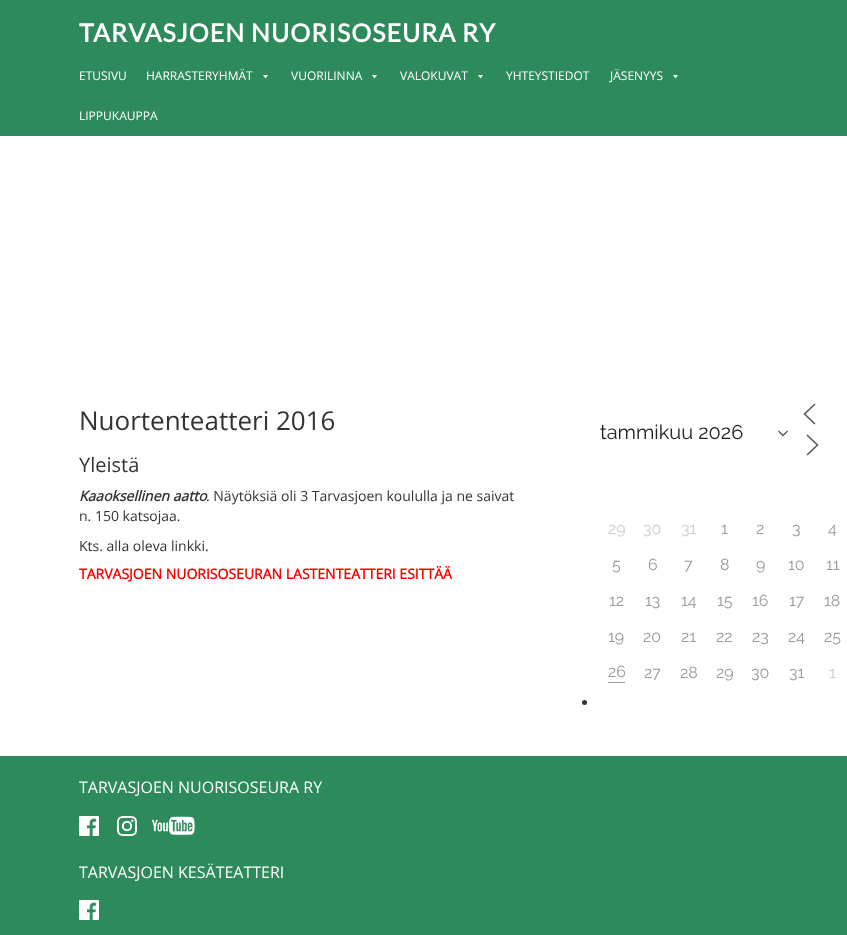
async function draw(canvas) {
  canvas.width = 847
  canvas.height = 935
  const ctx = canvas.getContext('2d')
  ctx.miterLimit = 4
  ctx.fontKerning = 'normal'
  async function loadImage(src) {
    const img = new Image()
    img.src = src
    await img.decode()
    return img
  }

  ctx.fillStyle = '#fff'
  ctx.fillRect(0, 0, 847, 935)
  ctx.fillStyle = '#2d8a5a'
  ctx.fillRect(0, 0, 847, 136)
  ctx.letterSpacing = '1px'
  ctx.font = 'bold 25px Lato'
  ctx.fillStyle = '#fff'
  ctx.fillText('TARVASJOEN NUORISOSEURA RY', 79, 42)
  ctx.letterSpacing = '0px'
  ctx.font = '12px Open Sans'
  ctx.fillText('ETUSIVU', 79, 80)
  ctx.fillText('HARRASTERYHMÄT', 146, 80)
  ctx.beginPath()
  ctx.moveTo(268, 75)
  ctx.lineTo(265.5, 78.5)
  ctx.lineTo(263, 75)
  ctx.closePath()
  ctx.fill()
  ctx.fillText('VUORILINNA', 291, 80)
  ctx.beginPath()
  ctx.moveTo(377, 75)
  ctx.lineTo(374.5, 78.5)
  ctx.lineTo(372, 75)
  ctx.closePath()
  ctx.fill()
  ctx.fillText('VALOKUVAT', 400, 80)
  ctx.beginPath()
  ctx.moveTo(483, 75)
  ctx.lineTo(480.5, 78.5)
  ctx.lineTo(478, 75)
  ctx.closePath()
  ctx.fill()
  ctx.fillText('YHTEYSTIEDOT', 506, 80)
  ctx.fillText('JÄSENYYS', 610, 80)
  ctx.beginPath()
  ctx.moveTo(678, 75)
  ctx.lineTo(675.5, 78.5)
  ctx.lineTo(673, 75)
  ctx.closePath()
  ctx.fill()
  ctx.fillText('LIPPUKAUPPA', 79, 120)
  ctx.font = '26px Open Sans'
  ctx.fillStyle = '#333'
  ctx.fillText('Nuortenteatteri 2016', 79, 430)
  ctx.font = '20px Open Sans'
  ctx.fillText('Yleistä', 79, 472)
  ctx.font = 'italic bold 14px Open Sans'
  ctx.fillText('Kaaoksellinen aatto', 79, 501)
  ctx.font = '14px Open Sans'
  ctx.fillText('. Näytöksiä oli 3 Tarvasjoen koululla ja ne saivat', 206, 501)
  ctx.fillText('n. 150 katsojaa.', 79, 521)
  ctx.fillText('Kts. alla oleva linkki.', 79, 551)
  ctx.font = 'bold 14px Open Sans'
  ctx.fillStyle = '#f00'
  ctx.fillText('TARVASJOEN NUORISOSEURAN LASTENTEATTERI ESITTÄÄ', 79, 579)
  ctx.beginPath()
  ctx.moveTo(779, 431.5)
  ctx.lineTo(783, 435.5)
  ctx.lineTo(787, 431.5)
  ctx.strokeStyle = '#555'
  ctx.lineWidth = 1.3
  ctx.lineCap = 'square'
  ctx.stroke()
  ctx.font = '20px Raleway'
  ctx.fillStyle = '#212121'
  ctx.fillText('tammikuu 2026', 600, 439)
  ctx.beginPath()
  ctx.moveTo(814.5, 423.5)
  ctx.lineTo(804.5, 414)
  ctx.lineTo(814.5, 404.5)
  ctx.moveTo(807.5, 454.5)
  ctx.lineTo(817.5, 445)
  ctx.lineTo(807.5, 435.5)
  ctx.lineWidth = 1.5
  ctx.stroke()
  ctx.font = '16px Raleway'
  ctx.fillStyle = '#ccc'
  ctx.fillText('29', 608, 534)
  ctx.fillText('30', 643, 534)
  ctx.fillText('31', 681, 534)
  ctx.fillStyle = '#999'
  ctx.fillText('1', 721, 534)
  ctx.fillText('2', 756, 534)
  ctx.fillText('3', 792, 534)
  ctx.fillText('4', 828, 534)
  ctx.fillText('5', 612, 570)
  ctx.fillText('6', 648, 570)
  ctx.fillText('7', 684, 570)
  ctx.fillText('8', 720, 570)
  ctx.fillText('9', 756, 570)
  ctx.fillText('10', 788, 570)
  ctx.fillText('11', 826, 570)
  ctx.fillText('12', 609, 606)
  ctx.fillText('13', 645, 606)
  ctx.fillText('14', 681, 606)
  ctx.fillText('15', 717, 606)
  ctx.fillText('16', 752, 606)
  ctx.fillText('17', 789, 606)
  ctx.fillText('18', 824, 606)
  ctx.fillText('19', 608, 642)
  ctx.fillText('20', 643, 642)
  ctx.fillText('21', 681, 642)
  ctx.fillText('22', 716, 642)
  ctx.fillText('23', 752, 642)
  ctx.fillText('24', 788, 642)
  ctx.fillText('25', 824, 642)
  ctx.fillText('26', 608, 677)
  ctx.fillRect(608, 682, 17, 1)
  ctx.fillText('27', 644, 678)
  ctx.fillText('28', 680, 678)
  ctx.fillText('29', 716, 678)
  ctx.fillText('30', 751, 678)
  ctx.fillText('31', 789, 678)
  ctx.fillStyle = '#ccc'
  ctx.fillText('1', 829, 678)
  ctx.fillStyle = '#333'
  ctx.beginPath()
  ctx.arc(584.5, 702.5, 2.5, 0, 2 * Math.PI)
  ctx.fill()
  ctx.fillStyle = '#2d8a5a'
  ctx.fillRect(0, 756, 847, 179)
  ctx.font = '16px Open Sans'
  ctx.fillStyle = '#fff'
  ctx.fillText('TARVASJOEN NUORISOSEURA RY', 79, 793)
  ctx.drawImage(await loadImage('image0.png'), 79, 816, 20, 20)
  ctx.drawImage(await loadImage('image1.png'), 117, 816, 20, 20)
  ctx.drawImage(await loadImage('image2.png'), 151, 816, 44, 20)
  ctx.fillText('TARVASJOEN KESÄTEATTERI', 79, 878)
  ctx.drawImage(await loadImage('image0.png'), 79, 900, 20, 20)
}

draw(document.querySelector('canvas'))
